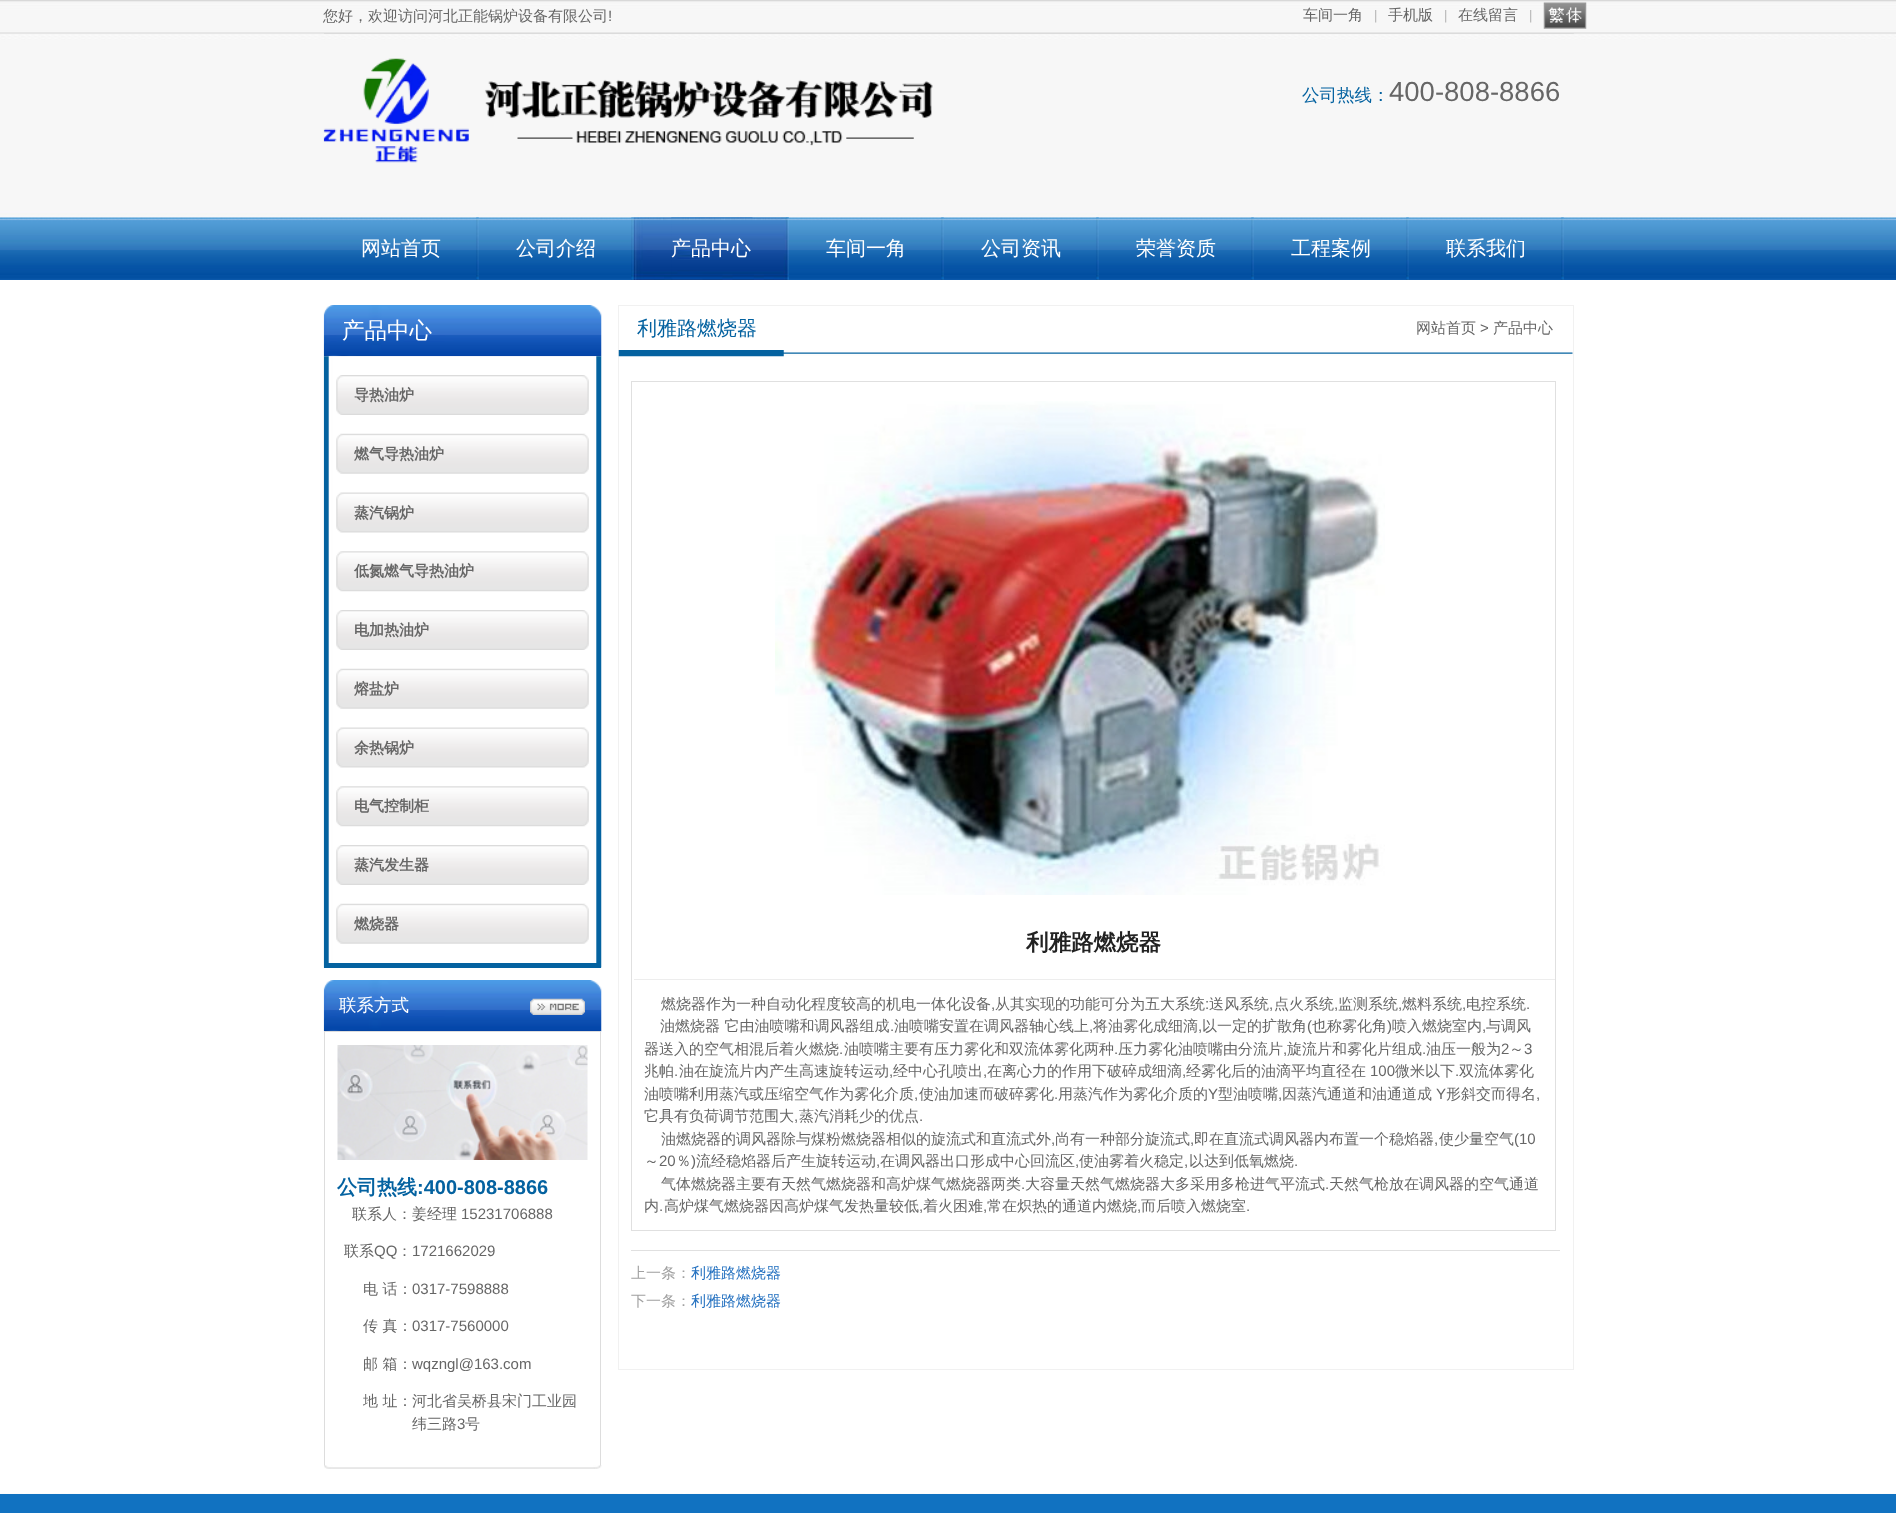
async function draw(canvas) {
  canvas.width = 1896
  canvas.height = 1513
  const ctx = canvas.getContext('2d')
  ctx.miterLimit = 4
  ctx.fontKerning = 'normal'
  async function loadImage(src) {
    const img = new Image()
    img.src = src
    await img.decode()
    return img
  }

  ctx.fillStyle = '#fff'
  ctx.fillRect(0, 0, 1896, 1513)
  ctx.drawImage(await loadImage('image0.png'), 0, 0, 1896, 34)
  ctx.drawImage(await loadImage('image4.png'), 0, 33, 1896, 247)
  ctx.drawImage(await loadImage('image1.png'), 324, 33, 1250, 1)
  ctx.font = '500 15px WenQuanYi Zen Hei'
  ctx.fillStyle = '#666'
  ctx.fillText('您好，欢迎访问河北正能锅炉设备有限公司', 323, 21)
  ctx.font = '15px Liberation Sans'
  ctx.fillText('!', 608, 21)
  ctx.drawImage(await loadImage('image2.png'), 1375, 10, 2, 13)
  ctx.font = '500 15px WenQuanYi Zen Hei'
  ctx.fillText('车间一角', 1303, 20)
  ctx.drawImage(await loadImage('image2.png'), 1445, 10, 2, 13)
  ctx.fillText('手机版', 1388, 20)
  ctx.drawImage(await loadImage('image2.png'), 1530, 10, 2, 13)
  ctx.fillText('在线留言', 1458, 20)
  ctx.drawImage(await loadImage('image3.png'), 1543, 2, 44, 27)
  ctx.drawImage(await loadImage('image5.png'), 323, 58, 610, 105)
  ctx.font = '500 17.5px WenQuanYi Zen Hei'
  ctx.fillStyle = '#0462a0'
  ctx.fillText('公司热线：', 1302, 101)
  ctx.font = '27.5px Liberation Sans'
  ctx.fillStyle = '#666'
  ctx.fillText('400-808-8866', 1389, 101)
  ctx.drawImage(await loadImage('image6.png'), 476, 217, 3, 63)
  ctx.font = '500 20px WenQuanYi Zen Hei'
  ctx.fillStyle = '#fff'
  ctx.fillText('网站首页', 361, 255)
  ctx.drawImage(await loadImage('image7.png'), 631, 217, 3, 63)
  ctx.fillText('公司介绍', 516, 255)
  ctx.drawImage(await loadImage('image8.png'), 786, 217, 3, 63)
  ctx.drawImage(await loadImage('image9.png'), 633, 217, 120, 63)
  ctx.drawImage(await loadImage('image10.png'), 671, 217, 118, 63)
  ctx.fillText('产品中心', 671, 255)
  ctx.drawImage(await loadImage('image11.png'), 941, 217, 3, 63)
  ctx.fillText('车间一角', 826, 255)
  ctx.drawImage(await loadImage('image6.png'), 1096, 217, 3, 63)
  ctx.fillText('公司资讯', 981, 255)
  ctx.drawImage(await loadImage('image7.png'), 1251, 217, 3, 63)
  ctx.fillText('荣誉资质', 1136, 255)
  ctx.drawImage(await loadImage('image8.png'), 1406, 217, 3, 63)
  ctx.fillText('工程案例', 1291, 255)
  ctx.drawImage(await loadImage('image11.png'), 1561, 217, 3, 63)
  ctx.fillText('联系我们', 1446, 255)
  ctx.drawImage(await loadImage('image12.png'), 323, 305, 279, 52)
  ctx.font = '500 22.5px WenQuanYi Zen Hei'
  ctx.fillText('产品中心', 342, 338)
  ctx.drawImage(await loadImage('image13.png'), 323, 356, 279, 612)
  ctx.fillStyle = '#0462a0'
  ctx.fillRect(324, 963, 277, 5)
  ctx.drawImage(await loadImage('image14.png'), 336, 375, 253, 40)
  ctx.font = 'bold 15px WenQuanYi Zen Hei'
  ctx.fillStyle = '#666'
  ctx.fillText('导热油炉', 354, 400)
  ctx.drawImage(await loadImage('image15.png'), 336, 433, 253, 41)
  ctx.fillText('燃气导热油炉', 354, 459)
  ctx.drawImage(await loadImage('image16.png'), 336, 492, 253, 41)
  ctx.fillText('蒸汽锅炉', 354, 518)
  ctx.drawImage(await loadImage('image17.png'), 336, 551, 253, 41)
  ctx.fillText('低氮燃气导热油炉', 354, 576)
  ctx.drawImage(await loadImage('image14.png'), 336, 610, 253, 40)
  ctx.fillText('电加热油炉', 354, 635)
  ctx.drawImage(await loadImage('image15.png'), 336, 668, 253, 41)
  ctx.fillText('熔盐炉', 354, 694)
  ctx.drawImage(await loadImage('image16.png'), 336, 727, 253, 41)
  ctx.fillText('余热锅炉', 354, 753)
  ctx.drawImage(await loadImage('image17.png'), 336, 786, 253, 41)
  ctx.fillText('电气控制柜', 354, 811)
  ctx.drawImage(await loadImage('image14.png'), 336, 845, 253, 40)
  ctx.fillText('蒸汽发生器', 354, 870)
  ctx.drawImage(await loadImage('image15.png'), 336, 903, 253, 41)
  ctx.fillText('燃烧器', 354, 929)
  ctx.drawImage(await loadImage('image12.png'), 323, 980, 279, 52)
  ctx.font = '500 17.5px WenQuanYi Zen Hei'
  ctx.fillStyle = '#fff'
  ctx.fillText('联系方式', 339, 1011)
  ctx.drawImage(await loadImage('image18.png'), 530, 998, 55, 17)
  ctx.fillStyle = '#ddd'
  ctx.fillRect(324, 1031, 277, 1)
  ctx.fillRect(600, 1031, 1, 434)
  ctx.fillRect(324, 1031, 1, 434)
  ctx.drawImage(await loadImage('image19.png'), 337, 1045, 251, 115)
  ctx.font = 'bold 20px WenQuanYi Zen Hei'
  ctx.fillStyle = '#0462a0'
  ctx.fillText('公司热线', 337, 1194)
  ctx.font = 'bold 20px Liberation Sans'
  ctx.fillText(':400-808-8866', 417, 1194)
  ctx.font = '500 15px WenQuanYi Zen Hei'
  ctx.fillStyle = '#666'
  ctx.fillText('联系人：姜经理', 352, 1219)
  ctx.font = '15px Liberation Sans'
  ctx.fillText('15231706888', 461, 1219)
  ctx.font = '500 15px WenQuanYi Zen Hei'
  ctx.fillText('联系', 344, 1256)
  ctx.font = '15px Liberation Sans'
  ctx.fillText('QQ', 374, 1256)
  ctx.font = '500 15px WenQuanYi Zen Hei'
  ctx.fillText('：', 397, 1256)
  ctx.font = '15px Liberation Sans'
  ctx.fillText('1721662029', 412, 1256)
  ctx.font = '500 15px WenQuanYi Zen Hei'
  ctx.fillText('电 话：', 363, 1294)
  ctx.font = '15px Liberation Sans'
  ctx.fillText('0317-7598888', 412, 1294)
  ctx.font = '500 15px WenQuanYi Zen Hei'
  ctx.fillText('传 真：', 363, 1331)
  ctx.font = '15px Liberation Sans'
  ctx.fillText('0317-7560000', 412, 1331)
  ctx.font = '500 15px WenQuanYi Zen Hei'
  ctx.fillText('邮 箱：', 363, 1369)
  ctx.font = '15px Liberation Sans'
  ctx.fillText('wqzngl@163.com', 412, 1369)
  ctx.font = '500 15px WenQuanYi Zen Hei'
  ctx.fillText('地 址：', 363, 1406)
  ctx.fillText('河北省吴桥县宋门工业园', 412, 1406)
  ctx.fillText('纬三路', 412, 1429)
  ctx.font = '15px Liberation Sans'
  ctx.fillText('3', 457, 1429)
  ctx.font = '500 15px WenQuanYi Zen Hei'
  ctx.fillText('号', 465, 1429)
  ctx.drawImage(await loadImage('image20.png'), 324, 1465, 278, 4)
  ctx.strokeStyle = '#f1f1f1'
  ctx.strokeRect(618.5, 305.5, 955, 1064)
  ctx.drawImage(await loadImage('image21.png'), 618, 350, 955, 7)
  ctx.font = '500 20px WenQuanYi Zen Hei'
  ctx.fillStyle = '#0462a0'
  ctx.fillText('利雅路燃烧器', 637, 335)
  ctx.font = '500 15px WenQuanYi Zen Hei'
  ctx.fillStyle = '#666'
  ctx.fillText('网站首页', 1416, 333)
  ctx.font = '15px Liberation Sans'
  ctx.fillText('>', 1480, 333)
  ctx.font = '500 15px WenQuanYi Zen Hei'
  ctx.fillText('产品中心', 1493, 333)
  ctx.strokeStyle = '#e0e0e0'
  ctx.strokeRect(631.5, 381.5, 924, 849)
  ctx.drawImage(await loadImage('image22.png'), 775, 401, 610, 494)
  ctx.fillStyle = '#ededed'
  ctx.fillRect(634, 979, 921, 1)
  ctx.font = 'bold 22.5px WenQuanYi Zen Hei'
  ctx.fillStyle = '#222'
  ctx.fillText('利雅路燃烧器', 1026, 950)
  ctx.font = '500 15px WenQuanYi Zen Hei'
  ctx.fillStyle = '#666'
  ctx.fillText('燃烧器作为一种自动化程度较高的机电一体化设备', 661, 1009)
  ctx.font = '15px Liberation Sans'
  ctx.fillText(',', 991, 1009)
  ctx.font = '500 15px WenQuanYi Zen Hei'
  ctx.fillText('从其实现的功能可分为五大系统', 995, 1009)
  ctx.font = '15px Liberation Sans'
  ctx.fillText(':', 1205, 1009)
  ctx.font = '500 15px WenQuanYi Zen Hei'
  ctx.fillText('送风系统', 1209, 1009)
  ctx.font = '15px Liberation Sans'
  ctx.fillText(',', 1269, 1009)
  ctx.font = '500 15px WenQuanYi Zen Hei'
  ctx.fillText('点火系统', 1274, 1009)
  ctx.font = '15px Liberation Sans'
  ctx.fillText(',', 1334, 1009)
  ctx.font = '500 15px WenQuanYi Zen Hei'
  ctx.fillText('监测系统', 1338, 1009)
  ctx.font = '15px Liberation Sans'
  ctx.fillText(',', 1398, 1009)
  ctx.font = '500 15px WenQuanYi Zen Hei'
  ctx.fillText('燃料系统', 1402, 1009)
  ctx.font = '15px Liberation Sans'
  ctx.fillText(',', 1462, 1009)
  ctx.font = '500 15px WenQuanYi Zen Hei'
  ctx.fillText('电控系统', 1466, 1009)
  ctx.font = '15px Liberation Sans'
  ctx.fillText('.', 1526, 1009)
  ctx.font = '500 15px WenQuanYi Zen Hei'
  ctx.fillText('油燃烧器 它由油喷嘴和调风器组成', 660, 1031)
  ctx.font = '15px Liberation Sans'
  ctx.fillText('.', 890, 1031)
  ctx.font = '500 15px WenQuanYi Zen Hei'
  ctx.fillText('油喷嘴安置在调风器轴心线上', 894, 1031)
  ctx.font = '15px Liberation Sans'
  ctx.fillText(',', 1089, 1031)
  ctx.font = '500 15px WenQuanYi Zen Hei'
  ctx.fillText('将油雾化成细滴', 1093, 1031)
  ctx.font = '15px Liberation Sans'
  ctx.fillText(',', 1198, 1031)
  ctx.font = '500 15px WenQuanYi Zen Hei'
  ctx.fillText('以一定的扩散角', 1202, 1031)
  ctx.font = '15px Liberation Sans'
  ctx.fillText('(', 1307, 1031)
  ctx.font = '500 15px WenQuanYi Zen Hei'
  ctx.fillText('也称雾化角', 1312, 1031)
  ctx.font = '15px Liberation Sans'
  ctx.fillText(')', 1387, 1031)
  ctx.font = '500 15px WenQuanYi Zen Hei'
  ctx.fillText('喷入燃烧室内', 1392, 1031)
  ctx.font = '15px Liberation Sans'
  ctx.fillText(',', 1482, 1031)
  ctx.font = '500 15px WenQuanYi Zen Hei'
  ctx.fillText('与调风', 1486, 1031)
  ctx.fillText('器送入的空气相混后着火燃烧', 644, 1054)
  ctx.fillText('油喷嘴主要有压力雾化和双流体雾化两种', 844, 1054)
  ctx.fillText('压力雾化油喷嘴由分流片', 1118, 1054)
  ctx.fillText('旋流片和雾化片组成', 1287, 1054)
  ctx.fillText('油压一般为', 1426, 1054)
  ctx.font = '15px Liberation Sans'
  ctx.fillText('2', 1501, 1054)
  ctx.font = '500 15px WenQuanYi Zen Hei'
  ctx.fillText('～', 1509, 1054)
  ctx.font = '15px Liberation Sans'
  ctx.fillText('3', 1524, 1054)
  ctx.fillText('.', 839, 1054)
  ctx.fillText('.', 1114, 1054)
  ctx.fillText(',', 1283, 1054)
  ctx.fillText('.', 1422, 1054)
  ctx.font = '500 15px WenQuanYi Zen Hei'
  ctx.fillText('兆帕', 644, 1076)
  ctx.font = '15px Liberation Sans'
  ctx.fillText('.', 674, 1076)
  ctx.font = '500 15px WenQuanYi Zen Hei'
  ctx.fillText('油在旋流片内产生高速旋转运动', 679, 1076)
  ctx.font = '15px Liberation Sans'
  ctx.fillText(',', 889, 1076)
  ctx.font = '500 15px WenQuanYi Zen Hei'
  ctx.fillText('经中心孔喷出', 893, 1076)
  ctx.font = '15px Liberation Sans'
  ctx.fillText(',', 983, 1076)
  ctx.font = '500 15px WenQuanYi Zen Hei'
  ctx.fillText('在离心力的作用下破碎成细滴', 987, 1076)
  ctx.font = '15px Liberation Sans'
  ctx.fillText(',', 1182, 1076)
  ctx.font = '500 15px WenQuanYi Zen Hei'
  ctx.fillText('经雾化后的油滴平均直径在', 1186, 1076)
  ctx.font = '15px Liberation Sans'
  ctx.fillText('100', 1370, 1076)
  ctx.font = '500 15px WenQuanYi Zen Hei'
  ctx.fillText('微米以下', 1395, 1076)
  ctx.font = '15px Liberation Sans'
  ctx.fillText('.', 1455, 1076)
  ctx.font = '500 15px WenQuanYi Zen Hei'
  ctx.fillText('双流体雾化', 1459, 1076)
  ctx.fillText('油喷嘴利用蒸汽或压缩空气作为雾化介质', 644, 1099)
  ctx.font = '15px Liberation Sans'
  ctx.fillText(',', 914, 1099)
  ctx.font = '500 15px WenQuanYi Zen Hei'
  ctx.fillText('使油加速而破碎雾化', 919, 1099)
  ctx.font = '15px Liberation Sans'
  ctx.fillText('.', 1054, 1099)
  ctx.font = '500 15px WenQuanYi Zen Hei'
  ctx.fillText('用蒸汽作为雾化介质的', 1058, 1099)
  ctx.font = '15px Liberation Sans'
  ctx.fillText('Y', 1208, 1099)
  ctx.font = '500 15px WenQuanYi Zen Hei'
  ctx.fillText('型油喷嘴', 1218, 1099)
  ctx.font = '15px Liberation Sans'
  ctx.fillText(',', 1278, 1099)
  ctx.font = '500 15px WenQuanYi Zen Hei'
  ctx.fillText('因蒸汽通道和油通道成', 1282, 1099)
  ctx.font = '15px Liberation Sans'
  ctx.fillText('Y', 1436, 1099)
  ctx.font = '500 15px WenQuanYi Zen Hei'
  ctx.fillText('形斜交而得名', 1446, 1099)
  ctx.font = '15px Liberation Sans'
  ctx.fillText(',', 1536, 1099)
  ctx.font = '500 15px WenQuanYi Zen Hei'
  ctx.fillText('它具有负荷调节范围大', 644, 1121)
  ctx.font = '15px Liberation Sans'
  ctx.fillText(',', 794, 1121)
  ctx.font = '500 15px WenQuanYi Zen Hei'
  ctx.fillText('蒸汽消耗少的优点', 799, 1121)
  ctx.font = '15px Liberation Sans'
  ctx.fillText('.', 919, 1121)
  ctx.font = '500 15px WenQuanYi Zen Hei'
  ctx.fillText('油燃烧器的调风器除与煤粉燃烧器相似的旋流式和直流式外', 661, 1144)
  ctx.font = '15px Liberation Sans'
  ctx.fillText(',', 1051, 1144)
  ctx.font = '500 15px WenQuanYi Zen Hei'
  ctx.fillText('尚有一种部分旋流式', 1055, 1144)
  ctx.font = '15px Liberation Sans'
  ctx.fillText(',', 1190, 1144)
  ctx.font = '500 15px WenQuanYi Zen Hei'
  ctx.fillText('即在直流式调风器内布置一个稳焰器', 1194, 1144)
  ctx.font = '15px Liberation Sans'
  ctx.fillText(',', 1434, 1144)
  ctx.font = '500 15px WenQuanYi Zen Hei'
  ctx.fillText('使少量空气', 1439, 1144)
  ctx.font = '15px Liberation Sans'
  ctx.fillText('(10', 1514, 1144)
  ctx.font = '500 15px WenQuanYi Zen Hei'
  ctx.fillText('～', 644, 1166)
  ctx.font = '15px Liberation Sans'
  ctx.fillText('20', 659, 1166)
  ctx.font = '500 15px WenQuanYi Zen Hei'
  ctx.fillText('％', 676, 1166)
  ctx.font = '15px Liberation Sans'
  ctx.fillText(')', 691, 1166)
  ctx.font = '500 15px WenQuanYi Zen Hei'
  ctx.fillText('流经稳焰器后产生旋转运动', 696, 1166)
  ctx.fillText('在调风器出口形成中心回流区', 880, 1166)
  ctx.fillText('使油雾着火稳定', 1079, 1166)
  ctx.fillText('以达到低氧燃烧', 1189, 1166)
  ctx.font = '15px Liberation Sans'
  ctx.fillText(',', 876, 1166)
  ctx.fillText(',', 1075, 1166)
  ctx.fillText(',', 1184, 1166)
  ctx.fillText('.', 1294, 1166)
  ctx.font = '500 15px WenQuanYi Zen Hei'
  ctx.fillText('气体燃烧器主要有天然气燃烧器和高炉煤气燃烧器两类', 661, 1189)
  ctx.font = '15px Liberation Sans'
  ctx.fillText('.', 1021, 1189)
  ctx.font = '500 15px WenQuanYi Zen Hei'
  ctx.fillText('大容量天然气燃烧器大多采用多枪进气平流式', 1025, 1189)
  ctx.font = '15px Liberation Sans'
  ctx.fillText('.', 1325, 1189)
  ctx.font = '500 15px WenQuanYi Zen Hei'
  ctx.fillText('天然气枪放在调风器的空气通道', 1329, 1189)
  ctx.fillText('内', 644, 1211)
  ctx.font = '15px Liberation Sans'
  ctx.fillText('.', 659, 1211)
  ctx.font = '500 15px WenQuanYi Zen Hei'
  ctx.fillText('高炉煤气燃烧器因高炉煤气发热量较低', 664, 1211)
  ctx.font = '15px Liberation Sans'
  ctx.fillText(',', 919, 1211)
  ctx.font = '500 15px WenQuanYi Zen Hei'
  ctx.fillText('着火困难', 923, 1211)
  ctx.font = '15px Liberation Sans'
  ctx.fillText(',', 983, 1211)
  ctx.font = '500 15px WenQuanYi Zen Hei'
  ctx.fillText('常在炽热的通道内燃烧', 987, 1211)
  ctx.font = '15px Liberation Sans'
  ctx.fillText(',', 1137, 1211)
  ctx.font = '500 15px WenQuanYi Zen Hei'
  ctx.fillText('而后喷入燃烧室', 1141, 1211)
  ctx.font = '15px Liberation Sans'
  ctx.fillText('.', 1246, 1211)
  ctx.fillStyle = '#e0e0e0'
  ctx.fillRect(631, 1250, 929, 1)
  ctx.font = '500 15px WenQuanYi Zen Hei'
  ctx.fillStyle = '#a1a1a1'
  ctx.fillText('上一条：', 631, 1278)
  ctx.fillStyle = '#2471c0'
  ctx.fillText('利雅路燃烧器', 691, 1278)
  ctx.fillStyle = '#a1a1a1'
  ctx.fillText('下一条：', 631, 1306)
  ctx.fillStyle = '#2471c0'
  ctx.fillText('利雅路燃烧器', 691, 1306)
  ctx.drawImage(await loadImage('image23.png'), 0, 1493, 1896, 1)
  ctx.fillStyle = '#1172c1'
  ctx.fillRect(0, 1494, 1896, 19)
}

draw(document.querySelector('canvas'))
